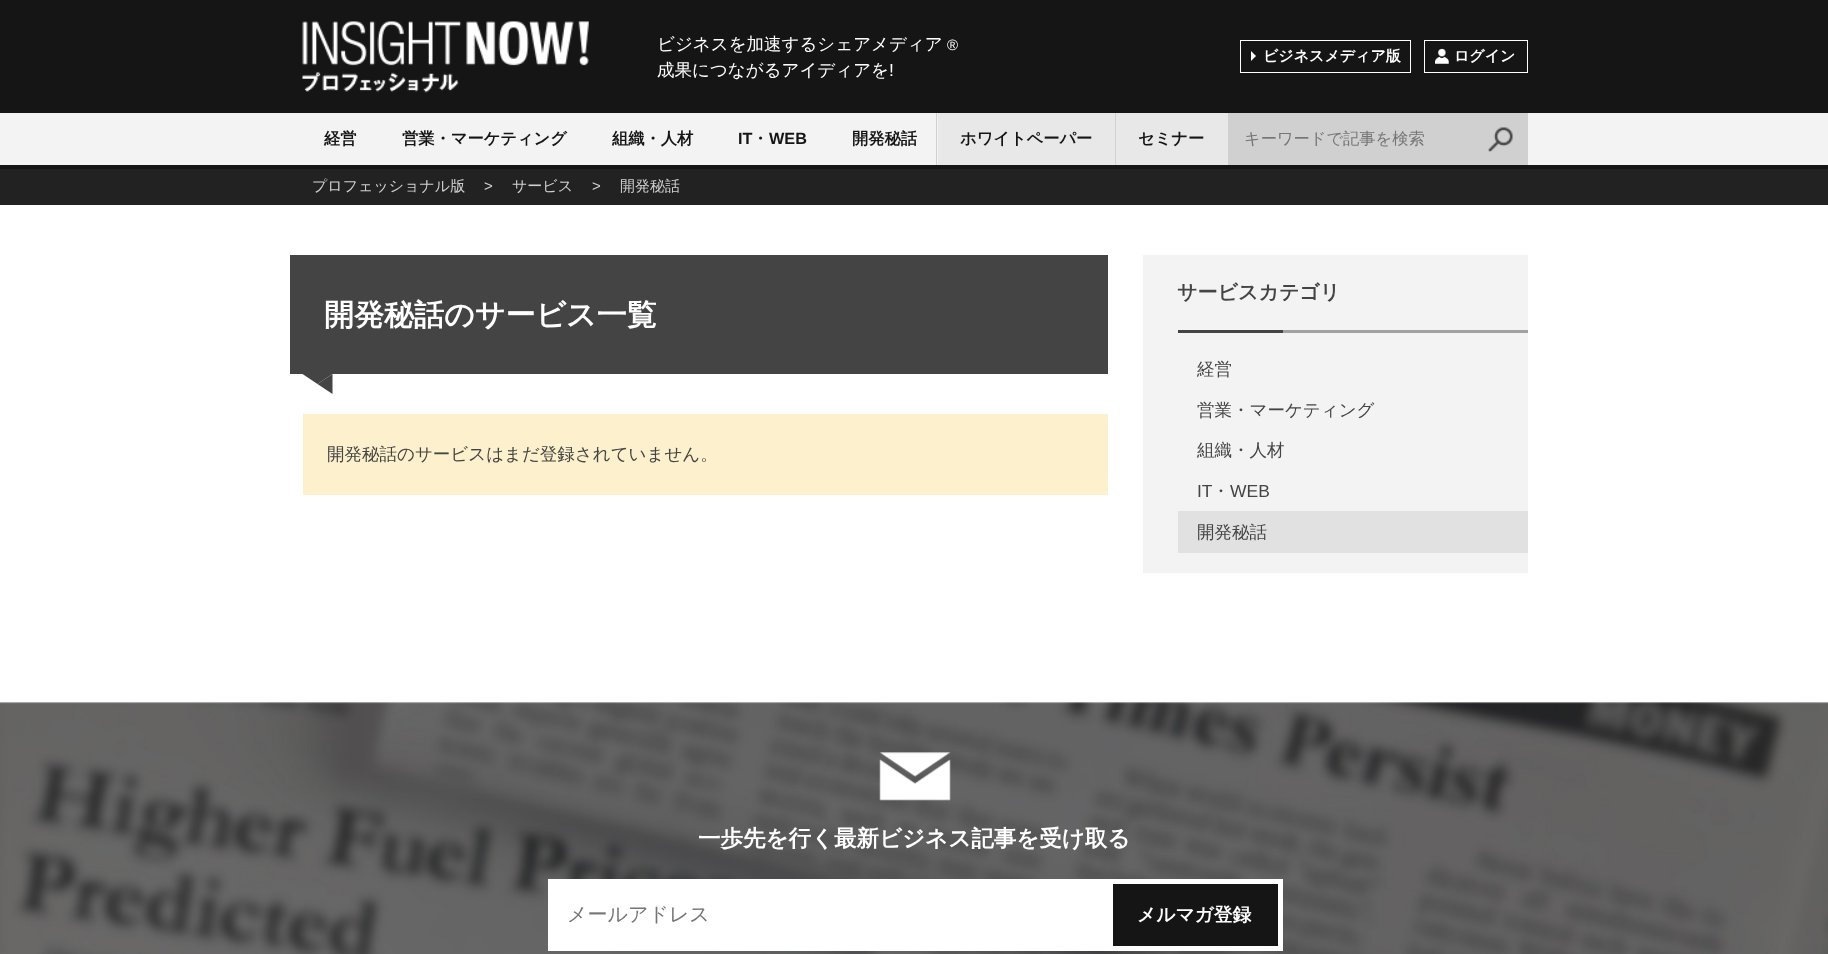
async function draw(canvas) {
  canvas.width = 1828
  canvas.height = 954
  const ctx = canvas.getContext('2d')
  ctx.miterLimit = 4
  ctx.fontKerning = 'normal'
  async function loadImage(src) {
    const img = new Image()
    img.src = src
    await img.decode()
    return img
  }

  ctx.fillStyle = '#fff'
  ctx.fillRect(0, 0, 1828, 954)
  ctx.fillStyle = '#151515'
  ctx.fillRect(0, 0, 1828, 113)
  ctx.drawImage(await loadImage('image0.png'), 302, 21, 287, 72)
  ctx.font = '500 17.5px WenQuanYi Zen Hei'
  ctx.fillStyle = '#fff'
  ctx.fillText('ビジネスを加速するシェアメディア', 657, 50)
  ctx.font = '15px Liberation Sans'
  ctx.fillText('®', 947, 50)
  ctx.font = '500 17.5px WenQuanYi Zen Hei'
  ctx.fillText('成果につながるアイディアを', 657, 76)
  ctx.font = '17.5px Liberation Sans'
  ctx.fillText('!', 889, 76)
  ctx.fillStyle = '#f3f3f3'
  ctx.fillRect(0, 113, 1828, 52)
  ctx.fillStyle = '#151515'
  ctx.fillRect(0, 165, 1828, 4)
  ctx.strokeStyle = '#fff'
  ctx.strokeRect(1240.5, 40.5, 170, 32)
  ctx.fillStyle = '#fff'
  ctx.beginPath()
  ctx.moveTo(1251, 61)
  ctx.lineTo(1251, 51)
  ctx.lineTo(1256, 56)
  ctx.closePath()
  ctx.fill()
  ctx.font = 'bold 15px WenQuanYi Zen Hei'
  ctx.fillText('ビジネスメディア版', 1263, 61)
  ctx.strokeRect(1424.5, 40.5, 103, 32)
  ctx.drawImage(await loadImage('image1.png'), 1435, 48, 14, 16)
  ctx.fillText('ログイン', 1454, 61)
  ctx.font = 'bold 16.25px WenQuanYi Zen Hei'
  ctx.fillStyle = '#151515'
  ctx.fillText('経営', 324, 144)
  ctx.fillText('営業・マーケティング', 402, 144)
  ctx.fillText('組織・人材', 612, 144)
  ctx.font = 'bold 16.25px Liberation Sans'
  ctx.fillText('IT', 738, 144)
  ctx.font = 'bold 16.25px WenQuanYi Zen Hei'
  ctx.fillText('・', 752, 144)
  ctx.font = 'bold 16.25px Liberation Sans'
  ctx.fillText('WEB', 769, 144)
  ctx.font = 'bold 16.25px WenQuanYi Zen Hei'
  ctx.fillText('開発秘話', 852, 144)
  ctx.fillStyle = '#d0d0d0'
  ctx.fillRect(936, 113, 1, 52)
  ctx.fillStyle = '#e8e8e8'
  ctx.fillRect(938, 113, 177, 52)
  ctx.fillStyle = '#151515'
  ctx.fillText('ホワイトペーパー', 960, 144)
  ctx.fillStyle = '#d0d0d0'
  ctx.fillRect(1115, 113, 1, 52)
  ctx.fillStyle = '#e8e8e8'
  ctx.fillRect(1116, 113, 112, 52)
  ctx.fillStyle = '#151515'
  ctx.fillText('セミナー', 1138, 144)
  ctx.fillStyle = '#d0d0d0'
  ctx.fillRect(1228, 113, 300, 52)
  ctx.font = '500 16.25px WenQuanYi Zen Hei'
  ctx.fillStyle = '#757575'
  ctx.fillText('キーワードで記事を検索', 1244, 144)
  ctx.drawImage(await loadImage('image2.png'), 1488, 127, 25, 25)
  ctx.fillStyle = '#222'
  ctx.fillRect(0, 169, 1828, 36)
  ctx.font = '500 15px WenQuanYi Zen Hei'
  ctx.fillStyle = '#d0d0d0'
  ctx.fillText('プロフェッショナル版', 312, 191)
  ctx.font = '15px Liberation Sans'
  ctx.fillText('>', 484, 191)
  ctx.font = '500 15px WenQuanYi Zen Hei'
  ctx.fillText('サービス', 512, 191)
  ctx.font = '15px Liberation Sans'
  ctx.fillText('>', 592, 191)
  ctx.font = '500 15px WenQuanYi Zen Hei'
  ctx.fillText('開発秘話', 620, 191)
  ctx.fillStyle = '#444'
  ctx.fillRect(290, 255, 818, 119)
  ctx.font = 'bold 30px WenQuanYi Zen Hei'
  ctx.fillStyle = '#fff'
  ctx.fillText('開発秘話のサービス一覧', 324, 325)
  ctx.fillStyle = '#444'
  ctx.beginPath()
  ctx.moveTo(302.5, 374)
  ctx.lineTo(332.5, 374)
  ctx.lineTo(317.5, 384)
  ctx.closePath()
  ctx.fill()
  ctx.beginPath()
  ctx.moveTo(332.5, 374)
  ctx.lineTo(332.5, 394)
  ctx.lineTo(317.5, 384)
  ctx.closePath()
  ctx.fill()
  ctx.fillStyle = '#fcf1cc'
  ctx.fillRect(303, 414, 805, 81)
  ctx.font = '500 17.5px WenQuanYi Zen Hei'
  ctx.fillStyle = '#444'
  ctx.fillText('開発秘話のサービスはまだ登録されていません。', 327, 460)
  ctx.fillStyle = '#f3f3f3'
  ctx.fillRect(1143, 255, 385, 318)
  ctx.fillStyle = '#a1a1a1'
  ctx.fillRect(1283, 330, 245, 3)
  ctx.font = 'bold 20px WenQuanYi Zen Hei'
  ctx.fillStyle = '#444'
  ctx.fillText('サービスカテゴリ', 1177, 299)
  ctx.fillRect(1178, 330, 105, 3)
  ctx.font = '500 17.5px WenQuanYi Zen Hei'
  ctx.fillText('経営', 1197, 375)
  ctx.fillText('営業・マーケティング', 1197, 416)
  ctx.fillText('組織・人材', 1197, 456)
  ctx.font = '17.5px Liberation Sans'
  ctx.fillText('IT', 1197, 497)
  ctx.font = '500 17.5px WenQuanYi Zen Hei'
  ctx.fillText('・', 1212, 497)
  ctx.font = '17.5px Liberation Sans'
  ctx.fillText('WEB', 1230, 497)
  ctx.fillStyle = '#e1e1e1'
  ctx.fillRect(1178, 511, 350, 42)
  ctx.font = '500 17.5px WenQuanYi Zen Hei'
  ctx.fillStyle = '#444'
  ctx.fillText('開発秘話', 1197, 538)
  ctx.drawImage(await loadImage('image3.png'), 0, 702, 1828, 252)
  ctx.drawImage(await loadImage('image4.png'), 879, 752, 72, 49)
  ctx.font = 'bold 22.5px WenQuanYi Zen Hei'
  ctx.fillStyle = '#fff'
  ctx.fillText('一歩先を行く最新ビジネス記事を受け取る', 698, 846)
  ctx.lineWidth = 5
  ctx.strokeRect(550.5, 881.5, 730, 67)
  ctx.fillRect(553, 884, 560, 62)
  ctx.font = '500 20px WenQuanYi Zen Hei'
  ctx.fillStyle = '#757575'
  ctx.fillText('メールアドレス', 567, 921)
  ctx.fillStyle = '#151515'
  ctx.fillRect(1113, 884, 165, 62)
  ctx.font = 'bold 18.75px WenQuanYi Zen Hei'
  ctx.fillStyle = '#fff'
  ctx.fillText('メルマガ登録', 1137, 921)
}

draw(document.querySelector('canvas'))
